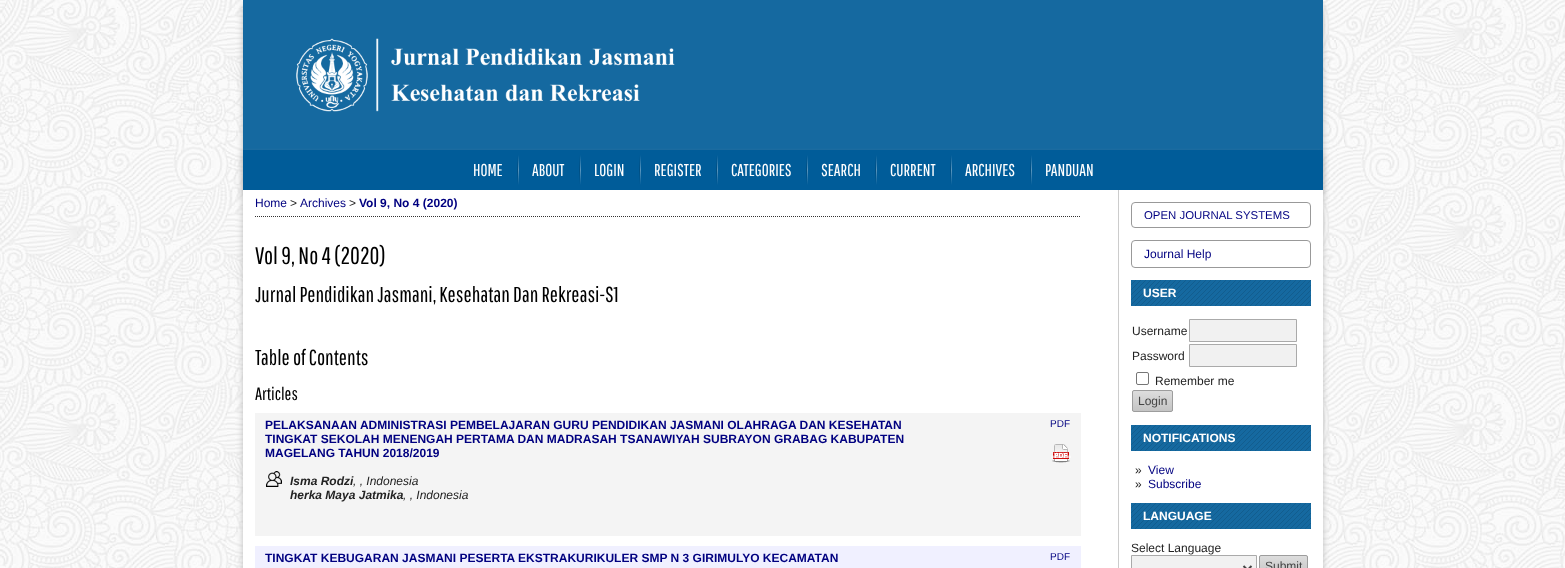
async function draw(canvas) {
  canvas.width = 1565
  canvas.height = 568
  const ctx = canvas.getContext('2d')
  ctx.miterLimit = 4
  ctx.fontKerning = 'normal'
  async function loadImage(src) {
    const img = new Image()
    img.src = src
    await img.decode()
    return img
  }
  let gradient

  ctx.fillStyle = '#fff'
  ctx.fillRect(0, 0, 1565, 568)
  ctx.drawImage(await loadImage('image0.png'), 0, 0, 1565, 568)
  ctx.fillStyle = '#bbb'
  ctx.filter = 'blur(3px)'
  ctx.beginPath()
  ctx.rect(243, 5, 1080, 190)
  ctx.fill()
  ctx.filter = 'none'
  ctx.drawImage(await loadImage('image1.png'), 243, 0, 1080, 150)
  ctx.filter = 'blur(3px)'
  ctx.beginPath()
  ctx.rect(243, 155, 1080, 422)
  ctx.fill()
  ctx.filter = 'none'
  ctx.fillStyle = '#fff'
  ctx.fillRect(243, 190, 1080, 378)
  ctx.fillStyle = '#005c99'
  ctx.fillRect(243, 150, 1080, 40)
  ctx.font = '17px Pathway Gothic One'
  ctx.fillStyle = '#fff'
  ctx.fillText('HOME', 473, 176)
  gradient = ctx.createLinearGradient(518, 155, 518, 185)
  gradient.addColorStop(0, '#005c99')
  gradient.addColorStop(0.5, '#004e82')
  gradient.addColorStop(1, '#005c99')
  ctx.fillStyle = gradient
  ctx.fillRect(517, 155, 1, 30)
  gradient = ctx.createLinearGradient(519, 155, 519, 185)
  gradient.addColorStop(0, '#005c99')
  gradient.addColorStop(0.5, '#5995bd')
  gradient.addColorStop(1, '#005c99')
  ctx.fillStyle = gradient
  ctx.fillRect(518, 155, 1, 30)
  ctx.fillStyle = '#fff'
  ctx.fillText('ABOUT', 532, 176)
  gradient = ctx.createLinearGradient(580, 155, 580, 185)
  gradient.addColorStop(0, '#005c99')
  gradient.addColorStop(0.5, '#004e82')
  gradient.addColorStop(1, '#005c99')
  ctx.fillStyle = gradient
  ctx.fillRect(579, 155, 1, 30)
  gradient = ctx.createLinearGradient(581, 155, 581, 185)
  gradient.addColorStop(0, '#005c99')
  gradient.addColorStop(0.5, '#5995bd')
  gradient.addColorStop(1, '#005c99')
  ctx.fillStyle = gradient
  ctx.fillRect(580, 155, 1, 30)
  ctx.fillStyle = '#fff'
  ctx.fillText('LOGIN', 594, 176)
  gradient = ctx.createLinearGradient(640, 155, 640, 185)
  gradient.addColorStop(0, '#005c99')
  gradient.addColorStop(0.5, '#004e82')
  gradient.addColorStop(1, '#005c99')
  ctx.fillStyle = gradient
  ctx.fillRect(639, 155, 1, 30)
  gradient = ctx.createLinearGradient(641, 155, 641, 185)
  gradient.addColorStop(0, '#005c99')
  gradient.addColorStop(0.5, '#5995bd')
  gradient.addColorStop(1, '#005c99')
  ctx.fillStyle = gradient
  ctx.fillRect(640, 155, 1, 30)
  ctx.fillStyle = '#fff'
  ctx.fillText('REGISTER', 654, 176)
  gradient = ctx.createLinearGradient(717, 155, 717, 185)
  gradient.addColorStop(0, '#005c99')
  gradient.addColorStop(0.5, '#004e82')
  gradient.addColorStop(1, '#005c99')
  ctx.fillStyle = gradient
  ctx.fillRect(716, 155, 1, 30)
  gradient = ctx.createLinearGradient(718, 155, 718, 185)
  gradient.addColorStop(0, '#005c99')
  gradient.addColorStop(0.5, '#5995bd')
  gradient.addColorStop(1, '#005c99')
  ctx.fillStyle = gradient
  ctx.fillRect(717, 155, 1, 30)
  ctx.fillStyle = '#fff'
  ctx.fillText('CATEGORIES', 731, 176)
  gradient = ctx.createLinearGradient(807, 155, 807, 185)
  gradient.addColorStop(0, '#005c99')
  gradient.addColorStop(0.5, '#004e82')
  gradient.addColorStop(1, '#005c99')
  ctx.fillStyle = gradient
  ctx.fillRect(806, 155, 1, 30)
  gradient = ctx.createLinearGradient(808, 155, 808, 185)
  gradient.addColorStop(0, '#005c99')
  gradient.addColorStop(0.5, '#5995bd')
  gradient.addColorStop(1, '#005c99')
  ctx.fillStyle = gradient
  ctx.fillRect(807, 155, 1, 30)
  ctx.fillStyle = '#fff'
  ctx.fillText('SEARCH', 821, 176)
  gradient = ctx.createLinearGradient(876, 155, 876, 185)
  gradient.addColorStop(0, '#005c99')
  gradient.addColorStop(0.5, '#004e82')
  gradient.addColorStop(1, '#005c99')
  ctx.fillStyle = gradient
  ctx.fillRect(875, 155, 1, 30)
  gradient = ctx.createLinearGradient(877, 155, 877, 185)
  gradient.addColorStop(0, '#005c99')
  gradient.addColorStop(0.5, '#5995bd')
  gradient.addColorStop(1, '#005c99')
  ctx.fillStyle = gradient
  ctx.fillRect(876, 155, 1, 30)
  ctx.fillStyle = '#fff'
  ctx.fillText('CURRENT', 890, 176)
  gradient = ctx.createLinearGradient(951, 155, 951, 185)
  gradient.addColorStop(0, '#005c99')
  gradient.addColorStop(0.5, '#004e82')
  gradient.addColorStop(1, '#005c99')
  ctx.fillStyle = gradient
  ctx.fillRect(950, 155, 1, 30)
  gradient = ctx.createLinearGradient(952, 155, 952, 185)
  gradient.addColorStop(0, '#005c99')
  gradient.addColorStop(0.5, '#5995bd')
  gradient.addColorStop(1, '#005c99')
  ctx.fillStyle = gradient
  ctx.fillRect(951, 155, 1, 30)
  ctx.fillStyle = '#fff'
  ctx.fillText('ARCHIVES', 965, 176)
  gradient = ctx.createLinearGradient(1031, 155, 1031, 185)
  gradient.addColorStop(0, '#005c99')
  gradient.addColorStop(0.5, '#004e82')
  gradient.addColorStop(1, '#005c99')
  ctx.fillStyle = gradient
  ctx.fillRect(1030, 155, 1, 30)
  gradient = ctx.createLinearGradient(1032, 155, 1032, 185)
  gradient.addColorStop(0, '#005c99')
  gradient.addColorStop(0.5, '#5995bd')
  gradient.addColorStop(1, '#005c99')
  ctx.fillStyle = gradient
  ctx.fillRect(1031, 155, 1, 30)
  ctx.fillStyle = '#fff'
  ctx.fillText('PANDUAN', 1045, 176)
  ctx.beginPath()
  ctx.moveTo(255, 216.5)
  ctx.lineTo(1081, 216.5)
  ctx.strokeStyle = '#333'
  ctx.setLineDash([1, 1])
  ctx.stroke()
  ctx.font = '12px Liberation Sans'
  ctx.fillStyle = '#000080'
  ctx.fillText('Home', 255, 207)
  ctx.fillStyle = '#222'
  ctx.fillText('>', 290, 207)
  ctx.fillStyle = '#000080'
  ctx.fillText('Archives', 300, 207)
  ctx.fillStyle = '#222'
  ctx.fillText('>', 349, 207)
  ctx.font = 'bold 12px Liberation Sans'
  ctx.fillStyle = '#000080'
  ctx.fillText('Vol 9, No 4 (2020)', 359, 207)
  ctx.font = '24px Pathway Gothic One'
  ctx.fillStyle = '#000'
  ctx.fillText('Vol 9, No 4 (2020)', 255, 264)
  ctx.font = '21.6px Pathway Gothic One'
  ctx.fillText('Jurnal Pendidikan Jasmani, Kesehatan Dan Rekreasi-S1', 255, 302)
  ctx.fillText('Table of Contents', 255, 365)
  ctx.font = '18px Pathway Gothic One'
  ctx.fillText('Articles', 255, 400)
  ctx.fillStyle = '#f4f4f4'
  ctx.fillRect(255, 413, 826, 123)
  ctx.font = 'bold 12px Liberation Sans'
  ctx.fillStyle = '#000080'
  ctx.fillText('PELAKSANAAN ADMINISTRASI PEMBELAJARAN GURU PENDIDIKAN JASMANI OLAHRAGA DAN KESEHATAN', 265, 429)
  ctx.fillText('TINGKAT SEKOLAH MENENGAH PERTAMA DAN MADRASAH TSANAWIYAH SUBRAYON GRABAG KABUPATEN', 265, 443)
  ctx.fillText('MAGELANG TAHUN 2018/2019', 265, 457)
  ctx.drawImage(await loadImage('image2.png'), 266, 471, 16, 16)
  ctx.font = 'italic bold 12px Liberation Sans'
  ctx.fillStyle = '#222'
  ctx.fillText('Isma Rodzi', 290, 485)
  ctx.font = 'italic 12px Liberation Sans'
  ctx.fillText(', , Indonesia', 353, 485)
  ctx.font = 'italic bold 12px Liberation Sans'
  ctx.fillText('herka Maya Jatmika', 290, 499)
  ctx.font = 'italic 12px Liberation Sans'
  ctx.fillText(', , Indonesia', 403, 499)
  ctx.font = '10px Liberation Sans'
  ctx.fillStyle = '#000080'
  ctx.fillText('PDF', 1050, 427)
  ctx.drawImage(await loadImage('image3.png'), 1051, 444, 20, 19)
  ctx.fillStyle = '#f0f0ff'
  ctx.fillRect(255, 546, 826, 22)
  ctx.font = 'bold 12px Liberation Sans'
  ctx.fillStyle = '#000080'
  ctx.fillText('TINGKAT KEBUGARAN JASMANI PESERTA EKSTRAKURIKULER SMP N 3 GIRIMULYO KECAMATAN', 265, 562)
  ctx.font = '10px Liberation Sans'
  ctx.fillText('PDF', 1050, 560)
  ctx.fillStyle = '#ccc'
  ctx.fillRect(1118, 190, 1, 378)
  ctx.beginPath()
  ctx.roundRect(1131.5, 202.5, 179, 25, 3.5)
  ctx.strokeStyle = '#999'
  ctx.setLineDash([])
  ctx.stroke()
  ctx.font = '11.4px Liberation Sans'
  ctx.fillStyle = '#000080'
  ctx.fillText('OPEN JOURNAL SYSTEMS', 1144, 219)
  ctx.beginPath()
  ctx.roundRect(1131.5, 240.5, 179, 27, 3.5)
  ctx.stroke()
  ctx.font = '12px Liberation Sans'
  ctx.fillText('Journal Help', 1144, 258)
  ctx.fillStyle = '#1569a0'
  ctx.fillRect(1131, 280, 180, 26)
  ctx.drawImage(await loadImage('image4.png'), 1131, 280, 180, 26)
  ctx.font = 'bold 12px Liberation Sans'
  ctx.fillStyle = '#fff'
  ctx.fillText('USER', 1143, 297)
  ctx.font = '12px Liberation Sans'
  ctx.fillStyle = '#222'
  ctx.fillText('Username', 1132, 335)
  ctx.fillStyle = '#f1f1f1'
  ctx.beginPath()
  ctx.rect(1189.5, 319.5, 107, 22)
  ctx.fill()
  ctx.strokeStyle = '#aaa'
  ctx.stroke()
  ctx.fillStyle = '#222'
  ctx.fillText('Password', 1132, 360)
  ctx.fillStyle = '#f1f1f1'
  ctx.beginPath()
  ctx.rect(1189.5, 344.5, 107, 22)
  ctx.fill()
  ctx.stroke()
  ctx.beginPath()
  ctx.roundRect(1136.5, 372.5, 12, 12, 1.5)
  ctx.strokeStyle = '#767676'
  ctx.stroke()
  ctx.fillStyle = '#222'
  ctx.fillText('Remember me', 1155, 385)
  ctx.save()
  ctx.beginPath()
  ctx.roundRect(1132, 390, 41, 22, 2)
  ctx.clip()
  gradient = ctx.createLinearGradient(1153, 391, 1153, 411)
  gradient.addColorStop(0, '#ddd')
  gradient.addColorStop(1, '#c4c4c4')
  ctx.fillStyle = gradient
  ctx.fillRect(1132, 391, 41, 20)
  ctx.restore()
  ctx.beginPath()
  ctx.roundRect(1132.5, 390.5, 40, 21, 1.5)
  ctx.strokeStyle = '#9d9d9d'
  ctx.stroke()
  ctx.fillStyle = '#444'
  ctx.fillText('Login', 1138, 405)
  ctx.fillStyle = '#1569a0'
  ctx.fillRect(1131, 425, 180, 26)
  ctx.drawImage(await loadImage('image4.png'), 1131, 425, 180, 26)
  ctx.font = 'bold 12px Liberation Sans'
  ctx.fillStyle = '#fff'
  ctx.fillText('NOTIFICATIONS', 1143, 442)
  ctx.font = '12px Liberation Sans'
  ctx.fillStyle = '#222'
  ctx.fillText('»', 1135, 474)
  ctx.fillStyle = '#000080'
  ctx.fillText('View', 1148, 474)
  ctx.fillStyle = '#222'
  ctx.fillText('»', 1135, 488)
  ctx.fillStyle = '#000080'
  ctx.fillText('Subscribe', 1148, 488)
  ctx.fillStyle = '#1569a0'
  ctx.fillRect(1131, 503, 180, 26)
  ctx.drawImage(await loadImage('image4.png'), 1131, 503, 180, 26)
  ctx.font = 'bold 12px Liberation Sans'
  ctx.fillStyle = '#fff'
  ctx.fillText('LANGUAGE', 1143, 520)
  ctx.font = '12px Liberation Sans'
  ctx.fillStyle = '#222'
  ctx.fillText('Select Language', 1131, 552)
  ctx.fillStyle = '#f1f1f1'
  ctx.beginPath()
  ctx.rect(1131.5, 555.5, 125, 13)
  ctx.fill()
  ctx.strokeStyle = '#aaa'
  ctx.stroke()
  ctx.beginPath()
  ctx.moveTo(1243.5, 566)
  ctx.lineTo(1247.5, 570)
  ctx.lineTo(1251.5, 566)
  ctx.strokeStyle = '#444'
  ctx.lineWidth = 2
  ctx.stroke()
  gradient = ctx.createLinearGradient(1284, 556, 1284, 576)
  gradient.addColorStop(0, '#ddd')
  gradient.addColorStop(1, '#c4c4c4')
  ctx.fillStyle = gradient
  ctx.fillRect(1259, 556, 49, 12)
  ctx.beginPath()
  ctx.roundRect(1259.5, 555.5, 48, 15, 1.5)
  ctx.strokeStyle = '#9d9d9d'
  ctx.lineWidth = 1
  ctx.stroke()
  ctx.fillStyle = '#444'
  ctx.fillText('Submit', 1265, 570)
}

draw(document.querySelector('canvas'))
